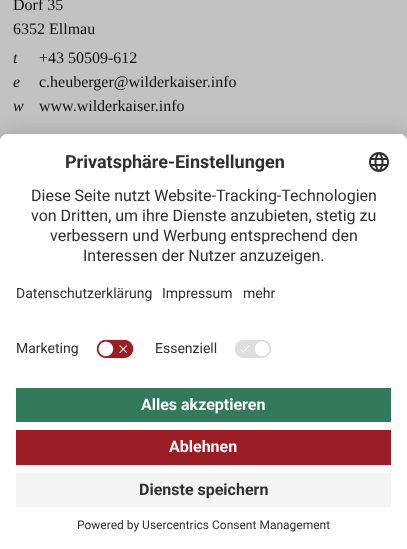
async function draw(canvas) {
  canvas.width = 407
  canvas.height = 549
  const ctx = canvas.getContext('2d')
  ctx.miterLimit = 4
  ctx.fontKerning = 'normal'
  async function loadImage(src) {
    const img = new Image()
    img.src = src
    await img.decode()
    return img
  }

  ctx.fillStyle = '#c2c2c2'
  ctx.fillRect(0, 0, 407, 549)
  ctx.font = '16px Liberation Serif'
  ctx.fillStyle = '#0f0f0f'
  ctx.fillText('Dorf 35', 13, 10)
  ctx.fillText('6352 Ellmau', 13, 34)
  ctx.font = 'italic 16px Liberation Serif'
  ctx.fillText('t', 13, 63)
  ctx.font = '16px Liberation Serif'
  ctx.fillText('+43 50509-612', 39, 63)
  ctx.font = 'italic 16px Liberation Serif'
  ctx.fillText('e', 13, 87)
  ctx.font = '16px Liberation Serif'
  ctx.fillText('c.heuberger@wilderkaiser.info', 39, 87)
  ctx.font = 'italic 16px Liberation Serif'
  ctx.fillText('w', 13, 111)
  ctx.font = '16px Liberation Serif'
  ctx.fillText('www.wilderkaiser.info', 39, 111)
  ctx.fillStyle = '#0000004d'
  ctx.filter = 'blur(14px)'
  ctx.beginPath()
  ctx.roundRect(0, 154, 407, 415, 8)
  ctx.fill()
  ctx.filter = 'none'
  ctx.fillStyle = '#00000038'
  ctx.filter = 'blur(13px)'
  ctx.beginPath()
  ctx.roundRect(0, 139, 407, 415, 8)
  ctx.fill()
  ctx.filter = 'none'
  ctx.fillStyle = '#fff'
  ctx.beginPath()
  ctx.roundRect(0, 134, 407, 415, [8, 8, 0, 0])
  ctx.fill()
  ctx.beginPath()
  ctx.roundRect(0, 134, 407, 242, [8, 8, 0, 0])
  ctx.fill()
  ctx.beginPath()
  ctx.roundRect(0, 134, 407, 198, [8, 8, 0, 0])
  ctx.fill()
  ctx.font = 'bold 18px Roboto'
  ctx.fillStyle = '#303030'
  ctx.fillText('Privatsphäre-Einstellungen', 65, 168)
  ctx.drawImage(await loadImage('image0.png'), 369, 152, 20, 20)
  ctx.font = '16px Roboto'
  ctx.fillText('Diese Seite nutzt Website-Tracking-Technologien', 31, 201)
  ctx.fillText('von Dritten, um ihre Dienste anzubieten, stetig zu', 31, 221)
  ctx.fillText('verbessern und Werbung entsprechend den', 50, 241)
  ctx.fillText('Interessen der Nutzer anzuzeigen.', 83, 261)
  ctx.font = '14px Roboto'
  ctx.fillText('Datenschutzerklärung', 16, 298)
  ctx.fillText('Impressum', 162, 298)
  ctx.fillText('mehr', 243, 298)
  ctx.fillText('Marketing', 16, 353)
  ctx.drawImage(await loadImage('image1.png'), 96, 339, 38, 20)
  ctx.fillText('Essenziell', 155, 353)
  ctx.drawImage(await loadImage('image2.png'), 234, 339, 38, 19)
  ctx.fillStyle = '#337a5d'
  ctx.fillRect(16, 388, 375, 34)
  ctx.font = 'bold 16px Roboto'
  ctx.fillStyle = '#fafafa'
  ctx.fillText('Alles akzeptieren', 141, 410)
  ctx.fillStyle = '#9b1d26'
  ctx.fillRect(16, 430, 375, 35)
  ctx.fillStyle = '#fafafa'
  ctx.fillText('Ablehnen', 169, 452)
  ctx.fillStyle = '#f5f5f5'
  ctx.fillRect(16, 473, 375, 34)
  ctx.fillStyle = '#303030'
  ctx.fillText('Dienste speichern', 139, 495)
  ctx.font = '12px Roboto'
  ctx.fillText('Powered by Usercentrics Consent Management', 77, 529)
}

draw(document.querySelector('canvas'))
